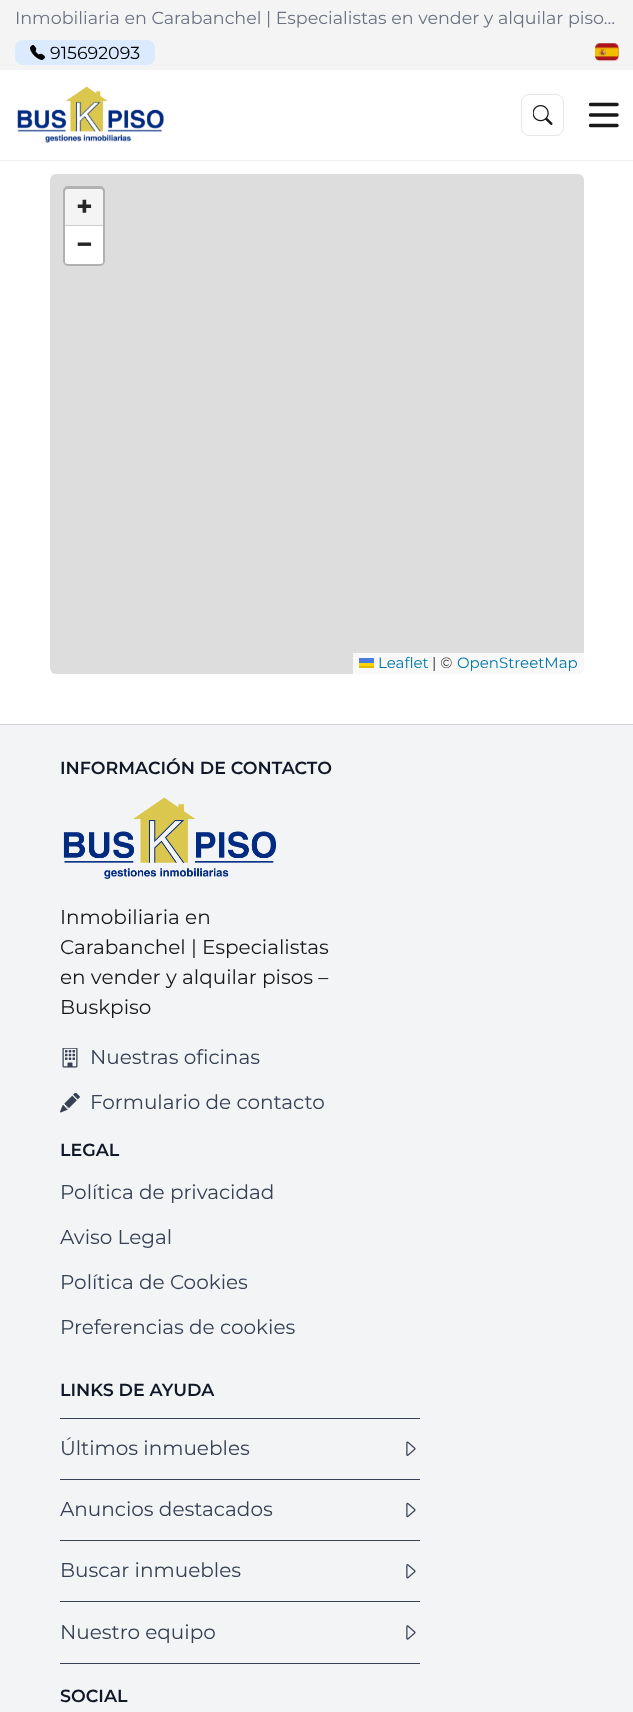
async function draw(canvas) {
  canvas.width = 633
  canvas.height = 1712
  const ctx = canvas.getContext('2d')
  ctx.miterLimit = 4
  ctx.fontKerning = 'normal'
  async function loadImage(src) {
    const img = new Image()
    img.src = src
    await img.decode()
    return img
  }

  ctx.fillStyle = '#fff'
  ctx.fillRect(0, 0, 633, 1712)
  ctx.fillStyle = '#edeef1'
  ctx.fillRect(0, 160, 633, 1)
  ctx.fillStyle = '#f4f4f5'
  ctx.fillRect(0, 0, 633, 70)
  ctx.font = '17.5px Montserrat'
  ctx.fillStyle = '#6a7282'
  ctx.fillText('Inmobiliaria en Carabanchel | Especialistas en vender y alquilar piso…', 15, 24)
  ctx.fillStyle = '#dbeafe'
  ctx.beginPath()
  ctx.roundRect(15, 40, 140, 25, 8)
  ctx.fill()
  ctx.drawImage(await loadImage('image0.png'), 30, 45, 15, 15)
  ctx.fillStyle = '#000'
  ctx.fillText('915692093', 50, 59)
  ctx.drawImage(await loadImage('image1.png'), 595, 43, 24, 19)
  ctx.drawImage(await loadImage('image2.png'), 17, 86, 147, 57)
  ctx.beginPath()
  ctx.roundRect(521.5, 94.5, 42, 41, 7.5)
  ctx.strokeStyle = '#e5e7eb'
  ctx.stroke()
  ctx.drawImage(await loadImage('image3.png'), 533, 105, 20, 20)
  ctx.save()
  ctx.beginPath()
  ctx.rect(589, 100, 30, 30)
  ctx.clip()
  ctx.beginPath()
  ctx.moveTo(590.5, 104.5)
  ctx.lineTo(617, 104.5)
  ctx.moveTo(590.5, 115)
  ctx.lineTo(617, 115)
  ctx.moveTo(590.5, 125.5)
  ctx.lineTo(617, 125.5)
  ctx.strokeStyle = '#18181b'
  ctx.lineWidth = 3.5
  ctx.lineCap = 'round'
  ctx.lineJoin = 'round'
  ctx.stroke()
  ctx.restore()
  ctx.fillStyle = '#ddd'
  ctx.beginPath()
  ctx.roundRect(50, 174, 534, 500, 6)
  ctx.fill()
  ctx.beginPath()
  ctx.roundRect(64.5, 187.5, 39, 77, 3.5)
  ctx.strokeStyle = '#b1b1b1'
  ctx.lineWidth = 3
  ctx.stroke()
  ctx.fillStyle = '#f4f4f4'
  ctx.beginPath()
  ctx.roundRect(65, 189, 38, 36, [2.5, 2.5, 0, 0])
  ctx.fill()
  ctx.fillStyle = '#ccc'
  ctx.fillRect(65, 225, 38, 1)
  ctx.font = 'bold 28px Montserrat'
  ctx.fillStyle = '#262626'
  ctx.fillText('+', 76, 216)
  ctx.fillStyle = '#fff'
  ctx.beginPath()
  ctx.roundRect(65, 226, 38, 38, [0, 0, 2.5, 2.5])
  ctx.fill()
  ctx.fillStyle = '#262626'
  ctx.fillText('−', 76, 254)
  ctx.fillStyle = '#ffffffcc'
  ctx.beginPath()
  ctx.roundRect(353, 653, 231, 21, [0, 0, 6, 0])
  ctx.fill()
  ctx.font = '15px Montserrat'
  ctx.fillStyle = '#0078a8'
  ctx.fillText('Leaflet', 378, 668)
  ctx.fillStyle = '#4c7be1'
  ctx.fillRect(359, 658, 15, 5)
  ctx.fillStyle = '#ffd500'
  ctx.fillRect(359, 663, 15, 3)
  ctx.fillStyle = '#e0bc00'
  ctx.fillRect(359, 666, 15, 2)
  ctx.fillStyle = '#333'
  ctx.fillText('| ©', 432, 668)
  ctx.fillStyle = '#0078a8'
  ctx.fillText('OpenStreetMap', 457, 668)
  ctx.fillStyle = '#f3f4f6'
  ctx.fillRect(0, 725, 633, 987)
  ctx.fillStyle = '#d4d4d8'
  ctx.fillRect(0, 724, 633, 1)
  ctx.font = '600 17.5px Montserrat'
  ctx.fillStyle = '#101828'
  ctx.fillText('INFORMACIÓN DE CONTACTO', 60, 774)
  ctx.drawImage(await loadImage('image4.png'), 63, 797, 214, 82)
  ctx.font = '20px Montserrat'
  ctx.fillStyle = '#18181b'
  ctx.fillText('Inmobiliaria en', 60, 924)
  ctx.fillText('Carabanchel | Especialistas', 60, 954)
  ctx.fillText('en vender y alquilar pisos –', 60, 984)
  ctx.fillText('Buskpiso', 60, 1014)
  ctx.drawImage(await loadImage('image5.png'), 62, 1048, 16, 20)
  ctx.fillStyle = '#364153'
  ctx.fillText('Nuestras oficinas', 90, 1064)
  ctx.drawImage(await loadImage('image6.png'), 60, 1093, 20, 20)
  ctx.fillText('Formulario de contacto', 90, 1109)
  ctx.font = '600 17.5px Montserrat'
  ctx.fillStyle = '#101828'
  ctx.fillText('LEGAL', 60, 1156)
  ctx.font = '20px Montserrat'
  ctx.fillStyle = '#364153'
  ctx.fillText('Política de privacidad', 60, 1199)
  ctx.fillText('Aviso Legal', 60, 1244)
  ctx.fillText('Política de Cookies', 60, 1289)
  ctx.fillText('Preferencias de cookies', 60, 1334)
  ctx.font = '600 17.5px Montserrat'
  ctx.fillStyle = '#101828'
  ctx.fillText('LINKS DE AYUDA', 60, 1396)
  ctx.fillStyle = '#364153'
  ctx.fillRect(60, 1418, 360, 1)
  ctx.fillRect(60, 1663, 360, 1)
  ctx.fillRect(60, 1479, 360, 1)
  ctx.font = '20px Montserrat'
  ctx.fillText('Últimos inmuebles', 60, 1455)
  ctx.drawImage(await loadImage('image7.png'), 406, 1441, 10, 15)
  ctx.fillRect(60, 1540, 360, 1)
  ctx.fillText('Anuncios destacados', 60, 1516)
  ctx.drawImage(await loadImage('image8.png'), 406, 1502, 10, 16)
  ctx.fillRect(60, 1601, 360, 1)
  ctx.fillText('Buscar inmuebles', 60, 1577)
  ctx.drawImage(await loadImage('image9.png'), 406, 1564, 10, 15)
  ctx.fillText('Nuestro equipo', 60, 1639)
  ctx.drawImage(await loadImage('image10.png'), 406, 1625, 10, 15)
  ctx.font = '600 17.5px Montserrat'
  ctx.fillStyle = '#101828'
  ctx.fillText('SOCIAL', 60, 1702)
}

draw(document.querySelector('canvas'))
